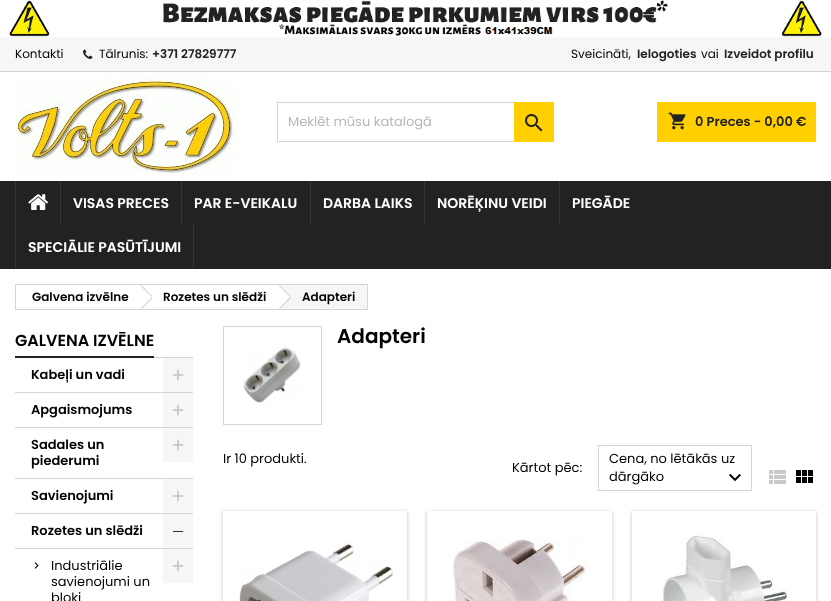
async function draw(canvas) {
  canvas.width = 831
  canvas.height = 601
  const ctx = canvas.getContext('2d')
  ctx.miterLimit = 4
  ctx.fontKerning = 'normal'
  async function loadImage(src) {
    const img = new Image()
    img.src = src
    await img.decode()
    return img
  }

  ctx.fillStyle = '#fff'
  ctx.fillRect(0, 0, 831, 601)
  ctx.drawImage(await loadImage('image0.png'), 9, 0, 813, 37)
  ctx.fillStyle = '#f6f6f6'
  ctx.fillRect(0, 37, 831, 34)
  ctx.fillStyle = '#d6d4d4'
  ctx.fillRect(0, 71, 831, 1)
  ctx.font = '12px Poppins'
  ctx.fillStyle = '#000'
  ctx.fillText('Kontakti', 15, 58)
  ctx.drawImage(await loadImage('image1.png'), 83, 49, 10, 10)
  ctx.fillText('Tālrunis:', 99, 58)
  ctx.font = '600 12px Poppins'
  ctx.fillStyle = '#222'
  ctx.fillText('+371 27829777', 152, 58)
  ctx.font = '12px Poppins'
  ctx.fillStyle = '#000'
  ctx.fillText('Sveicināti,', 571, 58)
  ctx.font = '600 12px Poppins'
  ctx.fillStyle = '#222'
  ctx.fillText('Ielogoties', 637, 58)
  ctx.font = '12px Poppins'
  ctx.fillStyle = '#000'
  ctx.fillText('vai', 701, 58)
  ctx.font = '600 12px Poppins'
  ctx.fillStyle = '#222'
  ctx.fillText('Izveidot profilu', 724, 58)
  ctx.drawImage(await loadImage('image2.png'), 15, 77, 220, 97)
  ctx.strokeStyle = '#d6d4d4'
  ctx.strokeRect(277.5, 102.5, 276, 39)
  ctx.font = '13px Poppins'
  ctx.fillStyle = '#b7b7b7'
  ctx.fillText('Meklēt mūsu katalogā', 288, 126)
  ctx.fillStyle = '#ffcf00'
  ctx.fillRect(514, 102, 40, 40)
  ctx.drawImage(await loadImage('image3.png'), 525, 114, 18, 18)
  ctx.fillRect(657, 102, 159, 40)
  ctx.drawImage(await loadImage('image4.png'), 668, 112, 18, 18)
  ctx.font = '600 13px Poppins'
  ctx.fillStyle = '#222'
  ctx.fillText('0 Preces - 0,00 €', 695, 126)
  ctx.fillRect(0, 181, 831, 88)
  ctx.fillStyle = '#363636'
  ctx.fillRect(15, 181, 1, 88)
  ctx.drawImage(await loadImage('image5.png'), 28, 194, 21, 16)
  ctx.fillRect(60, 181, 1, 44)
  ctx.font = '600 14px Poppins'
  ctx.fillStyle = '#fff'
  ctx.fillText('VISAS PRECES', 73, 208)
  ctx.fillStyle = '#363636'
  ctx.fillRect(181, 181, 1, 44)
  ctx.fillStyle = '#fff'
  ctx.fillText('PAR E-VEIKALU', 194, 208)
  ctx.fillStyle = '#363636'
  ctx.fillRect(310, 181, 1, 44)
  ctx.fillStyle = '#fff'
  ctx.fillText('DARBA LAIKS', 323, 208)
  ctx.fillStyle = '#363636'
  ctx.fillRect(424, 181, 1, 44)
  ctx.fillStyle = '#fff'
  ctx.fillText('NORĒĶINU VEIDI', 437, 208)
  ctx.fillStyle = '#363636'
  ctx.fillRect(559, 181, 1, 44)
  ctx.fillStyle = '#fff'
  ctx.fillText('PIEGĀDE', 572, 208)
  ctx.fillStyle = '#363636'
  ctx.fillRect(193, 225, 1, 44)
  ctx.fillStyle = '#fff'
  ctx.fillText('SPECIĀLIE PASŪTĪJUMI', 28, 252)
  ctx.strokeRect(15.5, 284.5, 352, 25)
  ctx.font = '600 12px Poppins'
  ctx.fillStyle = '#000'
  ctx.fillText('Galvena izvēlne', 32, 301)
  ctx.fillStyle = '#fff'
  ctx.beginPath()
  ctx.moveTo(142, 286)
  ctx.lineTo(152, 296)
  ctx.bezierCurveTo(152.5, 296.5, 152.5, 298, 152, 298.5)
  ctx.lineTo(142, 308.5)
  ctx.bezierCurveTo(141, 309.5, 140, 309.5, 139, 308.5)
  ctx.lineTo(129.5, 298.5)
  ctx.bezierCurveTo(128.5, 298, 128.5, 296.5, 129.5, 296)
  ctx.lineTo(139, 286)
  ctx.bezierCurveTo(140, 285, 141, 285, 142, 286)
  ctx.closePath()
  ctx.fill()
  ctx.fillStyle = '#d6d4d4'
  ctx.beginPath()
  ctx.moveTo(141.5, 285)
  ctx.lineTo(152.5, 296.5)
  ctx.lineTo(152, 297)
  ctx.lineTo(140.5, 286)
  ctx.closePath()
  ctx.moveTo(152, 297)
  ctx.lineTo(152.5, 298)
  ctx.lineTo(141.5, 309.5)
  ctx.lineTo(140.5, 308.5)
  ctx.closePath()
  ctx.fill()
  ctx.fillStyle = '#000'
  ctx.fillText('Rozetes un slēdži', 163, 301)
  ctx.fillStyle = '#f6f6f6'
  ctx.fillRect(280, 285, 87, 24)
  ctx.fillStyle = '#fff'
  ctx.beginPath()
  ctx.moveTo(280, 286)
  ctx.lineTo(290, 296)
  ctx.bezierCurveTo(291, 296.5, 291, 298, 290, 298.5)
  ctx.lineTo(280, 308.5)
  ctx.bezierCurveTo(279.5, 309.5, 278, 309.5, 277.5, 308.5)
  ctx.lineTo(267.5, 298.5)
  ctx.bezierCurveTo(266.5, 298, 266.5, 296.5, 267.5, 296)
  ctx.lineTo(277.5, 286)
  ctx.bezierCurveTo(278, 285, 279.5, 285, 280, 286)
  ctx.closePath()
  ctx.fill()
  ctx.fillStyle = '#d6d4d4'
  ctx.beginPath()
  ctx.moveTo(279.5, 285)
  ctx.lineTo(291, 296.5)
  ctx.lineTo(290, 297)
  ctx.lineTo(279, 286)
  ctx.closePath()
  ctx.moveTo(290, 297)
  ctx.lineTo(291, 298)
  ctx.lineTo(279.5, 309.5)
  ctx.lineTo(279, 308.5)
  ctx.closePath()
  ctx.fill()
  ctx.fillStyle = '#000'
  ctx.fillText('Adapteri', 302, 301)
  ctx.fillStyle = '#d6d4d4'
  ctx.fillRect(154, 357, 39, 1)
  ctx.fillStyle = '#222'
  ctx.fillRect(15, 356, 139, 2)
  ctx.font = '600 16px Poppins'
  ctx.fillStyle = '#000'
  ctx.fillText('GALVENA IZVĒLNE', 15, 346)
  ctx.fillStyle = '#d6d4d4'
  ctx.fillRect(15, 392, 178, 1)
  ctx.font = '600 13px Poppins'
  ctx.fillStyle = '#000'
  ctx.fillText('Kabeļi un vadi', 31, 379)
  ctx.fillStyle = '#f6f6f6'
  ctx.fillRect(163, 358, 30, 34)
  ctx.drawImage(await loadImage('image6.png'), 172, 369, 12, 12)
  ctx.fillStyle = '#d6d4d4'
  ctx.fillRect(15, 427, 178, 1)
  ctx.fillStyle = '#000'
  ctx.fillText('Apgaismojums', 31, 414)
  ctx.fillStyle = '#f6f6f6'
  ctx.fillRect(163, 393, 30, 34)
  ctx.drawImage(await loadImage('image6.png'), 172, 404, 12, 12)
  ctx.fillStyle = '#d6d4d4'
  ctx.fillRect(15, 478, 178, 1)
  ctx.fillStyle = '#000'
  ctx.fillText('Sadales un', 31, 449)
  ctx.fillText('piederumi', 31, 465)
  ctx.fillStyle = '#f6f6f6'
  ctx.fillRect(163, 428, 30, 34)
  ctx.drawImage(await loadImage('image6.png'), 172, 439, 12, 12)
  ctx.fillStyle = '#d6d4d4'
  ctx.fillRect(15, 513, 178, 1)
  ctx.fillStyle = '#000'
  ctx.fillText('Savienojumi', 31, 500)
  ctx.fillStyle = '#f6f6f6'
  ctx.fillRect(163, 479, 30, 34)
  ctx.drawImage(await loadImage('image6.png'), 172, 490, 12, 12)
  ctx.fillStyle = '#d6d4d4'
  ctx.fillRect(15, 548, 178, 1)
  ctx.fillStyle = '#000'
  ctx.fillText('Rozetes un slēdži', 31, 535)
  ctx.fillStyle = '#f6f6f6'
  ctx.fillRect(163, 514, 30, 34)
  ctx.fillStyle = '#333'
  ctx.fillRect(173, 531, 10, 1)
  ctx.drawImage(await loadImage('image7.png'), 34, 562, 5, 7)
  ctx.font = '13px Poppins'
  ctx.fillStyle = '#000'
  ctx.fillText('Industriālie', 51, 570)
  ctx.fillText('savienojumi un', 51, 586)
  ctx.fillText('bloki', 51, 602)
  ctx.fillStyle = '#f6f6f6'
  ctx.fillRect(163, 549, 30, 34)
  ctx.drawImage(await loadImage('image6.png'), 172, 560, 12, 12)
  ctx.strokeRect(223.5, 326.5, 98, 98)
  ctx.drawImage(await loadImage('image8.png'), 243, 347, 58, 56)
  ctx.font = '600 20px Poppins'
  ctx.fillStyle = '#000'
  ctx.fillText('Adapteri', 337, 343)
  ctx.font = '13px Poppins'
  ctx.fillText('Ir 10 produkti.', 223, 463)
  ctx.fillText('Kārtot pēc:', 512, 472)
  ctx.strokeRect(598.5, 445.5, 153, 45)
  ctx.fillText('Cena, no lētākās uz', 609, 463)
  ctx.fillText('dārgāko', 609, 481)
  ctx.drawImage(await loadImage('image9.png'), 729, 473, 12, 9)
  ctx.drawImage(await loadImage('image10.png'), 769, 470, 17, 14)
  ctx.drawImage(await loadImage('image11.png'), 796, 470, 17, 13)
  ctx.save()
  ctx.beginPath()
  ctx.moveTo(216, 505)
  ctx.lineTo(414, 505)
  ctx.lineTo(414, 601)
  ctx.lineTo(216, 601)
  ctx.closePath()
  ctx.moveTo(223, 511)
  ctx.lineTo(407, 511)
  ctx.lineTo(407, 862)
  ctx.lineTo(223, 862)
  ctx.closePath()
  ctx.clip('evenodd')
  ctx.fillStyle = '#0000003d'
  ctx.filter = 'blur(2px)'
  ctx.beginPath()
  ctx.rect(223, 512, 184, 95)
  ctx.fill()
  ctx.filter = 'none'
  ctx.restore()
  ctx.drawImage(await loadImage('image12.png'), 239, 541, 157, 60)
  ctx.save()
  ctx.beginPath()
  ctx.moveTo(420, 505)
  ctx.lineTo(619, 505)
  ctx.lineTo(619, 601)
  ctx.lineTo(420, 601)
  ctx.closePath()
  ctx.moveTo(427, 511)
  ctx.lineTo(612, 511)
  ctx.lineTo(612, 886)
  ctx.lineTo(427, 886)
  ctx.closePath()
  ctx.clip('evenodd')
  ctx.fillStyle = '#0000003d'
  ctx.filter = 'blur(2px)'
  ctx.beginPath()
  ctx.rect(427, 512, 185, 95)
  ctx.fill()
  ctx.filter = 'none'
  ctx.restore()
  ctx.drawImage(await loadImage('image13.png'), 453, 538, 134, 63)
  ctx.save()
  ctx.beginPath()
  ctx.moveTo(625, 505)
  ctx.lineTo(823, 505)
  ctx.lineTo(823, 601)
  ctx.lineTo(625, 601)
  ctx.closePath()
  ctx.moveTo(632, 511)
  ctx.lineTo(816, 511)
  ctx.lineTo(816, 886)
  ctx.lineTo(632, 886)
  ctx.closePath()
  ctx.clip('evenodd')
  ctx.fillStyle = '#0000003d'
  ctx.filter = 'blur(2px)'
  ctx.beginPath()
  ctx.rect(632, 512, 184, 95)
  ctx.fill()
  ctx.filter = 'none'
  ctx.restore()
  ctx.drawImage(await loadImage('image14.png'), 662, 534, 127, 67)
}

draw(document.querySelector('canvas'))
